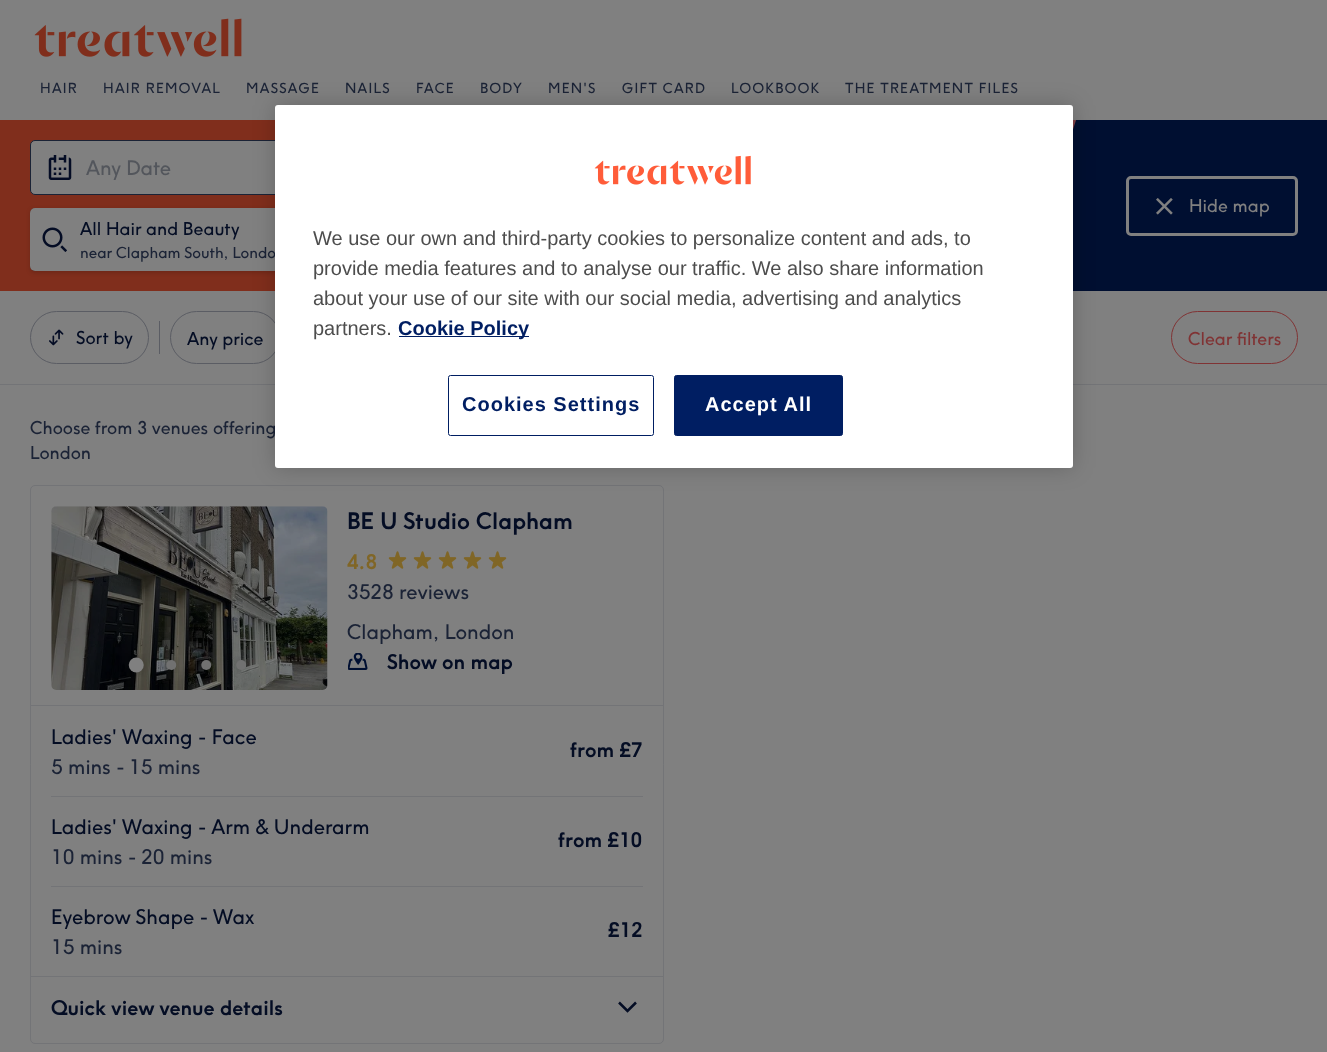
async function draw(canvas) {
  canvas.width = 1327
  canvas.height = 1052
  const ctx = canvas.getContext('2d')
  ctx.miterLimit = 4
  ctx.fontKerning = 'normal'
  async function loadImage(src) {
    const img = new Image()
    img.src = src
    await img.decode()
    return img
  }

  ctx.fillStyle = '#808080'
  ctx.fillRect(0, 0, 1327, 1052)
  ctx.drawImage(await loadImage('image0.png'), 34, 18, 208, 39)
  ctx.letterSpacing = '1.25px'
  ctx.font = '13.75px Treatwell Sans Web'
  ctx.fillStyle = '#1b2336'
  ctx.fillText('HAIR', 40, 93)
  ctx.fillText('HAIR REMOVAL', 103, 93)
  ctx.fillText('MASSAGE', 246, 93)
  ctx.fillText('NAILS', 345, 93)
  ctx.fillText('FACE', 416, 93)
  ctx.fillText('BODY', 480, 93)
  ctx.fillText('MEN\'S', 548, 93)
  ctx.fillText('GIFT CARD', 622, 93)
  ctx.fillText('LOOKBOOK', 731, 93)
  ctx.fillText('THE TREATMENT FILES', 845, 93)
  ctx.fillStyle = '#000f31'
  ctx.fillRect(1076, 120, 251, 171)
  ctx.drawImage(await loadImage('image1.png'), 0, 120, 1076, 171)
  ctx.fillStyle = '#808080'
  ctx.beginPath()
  ctx.roundRect(30.5, 140.5, 449, 54, 4.5)
  ctx.fill()
  ctx.strokeStyle = '#1b2336'
  ctx.stroke()
  ctx.drawImage(await loadImage('image2.png'), 48, 155, 24, 25)
  ctx.letterSpacing = '0px'
  ctx.font = '20px Treatwell Sans Web'
  ctx.fillStyle = '#53565c'
  ctx.fillText('Any Date', 86, 175)
  ctx.fillStyle = '#00000066'
  ctx.filter = 'blur(0.5px)'
  ctx.beginPath()
  ctx.roundRect(30, 208, 450, 63, 5)
  ctx.fill()
  ctx.filter = 'none'
  ctx.fillStyle = '#00000026'
  ctx.filter = 'blur(2px)'
  ctx.beginPath()
  ctx.roundRect(30, 209, 450, 64, 5)
  ctx.fill()
  ctx.filter = 'none'
  ctx.fillStyle = '#808080'
  ctx.beginPath()
  ctx.roundRect(30, 208, 450, 63, 5)
  ctx.fill()
  ctx.drawImage(await loadImage('image3.png'), 42, 227, 25, 25)
  ctx.font = '17.5px Treatwell Sans Web'
  ctx.fillStyle = '#040d24'
  ctx.fillText('All Hair and Beauty', 80, 235)
  ctx.font = '15px Treatwell Sans Web'
  ctx.fillStyle = '#1b2336'
  ctx.fillText('near Clapham South, Londo', 80, 258)
  ctx.beginPath()
  ctx.roundRect(1127.5, 177.5, 169, 57, 3.5)
  ctx.strokeStyle = '#808080'
  ctx.lineWidth = 3
  ctx.stroke()
  ctx.drawImage(await loadImage('image4.png'), 1156, 198, 17, 17)
  ctx.font = '17.5px Treatwell Sans Web'
  ctx.fillStyle = '#808080'
  ctx.fillText('Hide map', 1189, 212)
  ctx.fillStyle = '#737477'
  ctx.fillRect(0, 384, 1327, 1)
  ctx.beginPath()
  ctx.roundRect(30.5, 311.5, 118, 52, 26)
  ctx.strokeStyle = '#5b5d64'
  ctx.lineWidth = 1
  ctx.stroke()
  ctx.drawImage(await loadImage('image5.png'), 49, 329, 15, 17)
  ctx.fillStyle = '#040d24'
  ctx.fillText('Sort by', 76, 344)
  ctx.fillStyle = '#5b5d64'
  ctx.fillRect(159, 321, 1, 33)
  ctx.beginPath()
  ctx.roundRect(170.5, 311.5, 109, 52, 26)
  ctx.stroke()
  ctx.fillStyle = '#040d24'
  ctx.fillText('Any price', 187, 345)
  ctx.beginPath()
  ctx.roundRect(1171.5, 311.5, 126, 52, 26)
  ctx.strokeStyle = '#803334'
  ctx.stroke()
  ctx.fillStyle = '#803334'
  ctx.fillText('Clear filters', 1188, 345)
  ctx.fillStyle = '#1b2336'
  ctx.fillText('Choose from 3 venues offering', 30, 434)
  ctx.fillText('London', 30, 459)
  ctx.beginPath()
  ctx.roundRect(30.5, 485.5, 633, 558, 4.5)
  ctx.strokeStyle = '#737477'
  ctx.stroke()
  ctx.drawImage(await loadImage('image6.png'), 51, 506, 277, 184)
  ctx.drawImage(await loadImage('image7.png'), 128, 654, 19, 23)
  ctx.drawImage(await loadImage('image8.png'), 162, 657, 18, 16)
  ctx.drawImage(await loadImage('image9.png'), 201, 660, 11, 10)
  ctx.drawImage(await loadImage('image10.png'), 233, 656, 17, 18)
  ctx.font = 'bold 22.5px Treatwell Sans Web'
  ctx.fillStyle = '#040d24'
  ctx.fillText('BE U Studio Clapham', 347, 529)
  ctx.font = 'bold 20px Treatwell Sans Web'
  ctx.fillStyle = '#806627'
  ctx.fillText('4.8', 347, 569)
  ctx.drawImage(await loadImage('image11.png'), 388, 551, 19, 18)
  ctx.drawImage(await loadImage('image11.png'), 413, 551, 19, 18)
  ctx.drawImage(await loadImage('image11.png'), 438, 551, 19, 18)
  ctx.drawImage(await loadImage('image11.png'), 463, 551, 19, 18)
  ctx.drawImage(await loadImage('image11.png'), 488, 551, 19, 18)
  ctx.font = '20px Treatwell Sans Web'
  ctx.fillStyle = '#1b2336'
  ctx.fillText('3528 reviews', 347, 599)
  ctx.fillText('Clapham, London', 347, 639)
  ctx.drawImage(await loadImage('image12.png'), 348, 653, 20, 17)
  ctx.font = 'bold 20px Treatwell Sans Web'
  ctx.fillStyle = '#040d24'
  ctx.fillText('Show on map', 387, 669)
  ctx.fillStyle = '#737477'
  ctx.fillRect(31, 705, 632, 1)
  ctx.font = '20px Treatwell Sans Web'
  ctx.fillStyle = '#040d24'
  ctx.fillText('Ladies\' Waxing - Face', 51, 744)
  ctx.fillStyle = '#1b2336'
  ctx.fillText('5 mins -', 51, 774)
  ctx.fillText('15 mins', 129, 774)
  ctx.font = 'bold 20px Treatwell Sans Web'
  ctx.fillStyle = '#040d24'
  ctx.fillText('from £7', 570, 757)
  ctx.fillStyle = '#737477'
  ctx.fillRect(51, 796, 592, 1)
  ctx.font = '20px Treatwell Sans Web'
  ctx.fillStyle = '#040d24'
  ctx.fillText('Ladies\' Waxing - Arm & Underarm', 51, 834)
  ctx.fillStyle = '#1b2336'
  ctx.fillText('10 mins -', 51, 864)
  ctx.fillText('20 mins', 141, 864)
  ctx.font = 'bold 20px Treatwell Sans Web'
  ctx.fillStyle = '#040d24'
  ctx.fillText('from £10', 558, 847)
  ctx.fillStyle = '#737477'
  ctx.fillRect(51, 886, 592, 1)
  ctx.font = '20px Treatwell Sans Web'
  ctx.fillStyle = '#040d24'
  ctx.fillText('Eyebrow Shape - Wax', 51, 924)
  ctx.fillStyle = '#1b2336'
  ctx.fillText('15 mins', 51, 954)
  ctx.font = 'bold 20px Treatwell Sans Web'
  ctx.fillStyle = '#040d24'
  ctx.fillText('£12', 608, 937)
  ctx.fillStyle = '#737477'
  ctx.fillRect(31, 976, 632, 1)
  ctx.fillStyle = '#040d24'
  ctx.fillText('Quick view venue details', 51, 1015)
  ctx.beginPath()
  ctx.moveTo(619, 1002.5)
  ctx.lineTo(627.5, 1011)
  ctx.lineTo(636, 1002.5)
  ctx.strokeStyle = '#040d24'
  ctx.lineWidth = 2.5
  ctx.stroke()
  ctx.fillStyle = '#00000033'
  ctx.filter = 'blur(11px)'
  ctx.beginPath()
  ctx.roundRect(275, 105, 798, 363, 3)
  ctx.fill()
  ctx.filter = 'none'
  ctx.fillStyle = '#fff'
  ctx.beginPath()
  ctx.roundRect(275, 105, 798, 363, 3)
  ctx.fill()
  ctx.drawImage(await loadImage('image13.png'), 594, 155, 157, 30)
  ctx.font = '20px Liberation Sans'
  ctx.fillStyle = '#4d4d4d'
  ctx.fillText('We use our own and third-party cookies to personalize content and ads, to', 313, 245)
  ctx.fillText('provide media features and to analyse our traffic. We also share information', 313, 275)
  ctx.fillText('about your use of our site with our social media, advertising and analytics', 313, 305)
  ctx.fillText('partners.', 313, 335)
  ctx.fillStyle = '#001e62'
  ctx.fillRect(399, 336, 130, 1)
  ctx.font = 'bold 20px Liberation Sans'
  ctx.fillText('Cookie Policy', 398, 335)
  ctx.beginPath()
  ctx.roundRect(448.5, 375.5, 205, 60, 2)
  ctx.strokeStyle = '#001e62'
  ctx.lineWidth = 1
  ctx.stroke()
  ctx.letterSpacing = '1px'
  ctx.fillText('Cookies Settings', 462, 411)
  ctx.beginPath()
  ctx.roundRect(674.5, 375.5, 168, 60, 2)
  ctx.fill()
  ctx.stroke()
  ctx.fillStyle = '#fff'
  ctx.fillText('Accept All', 705, 411)
}

draw(document.querySelector('canvas'))
